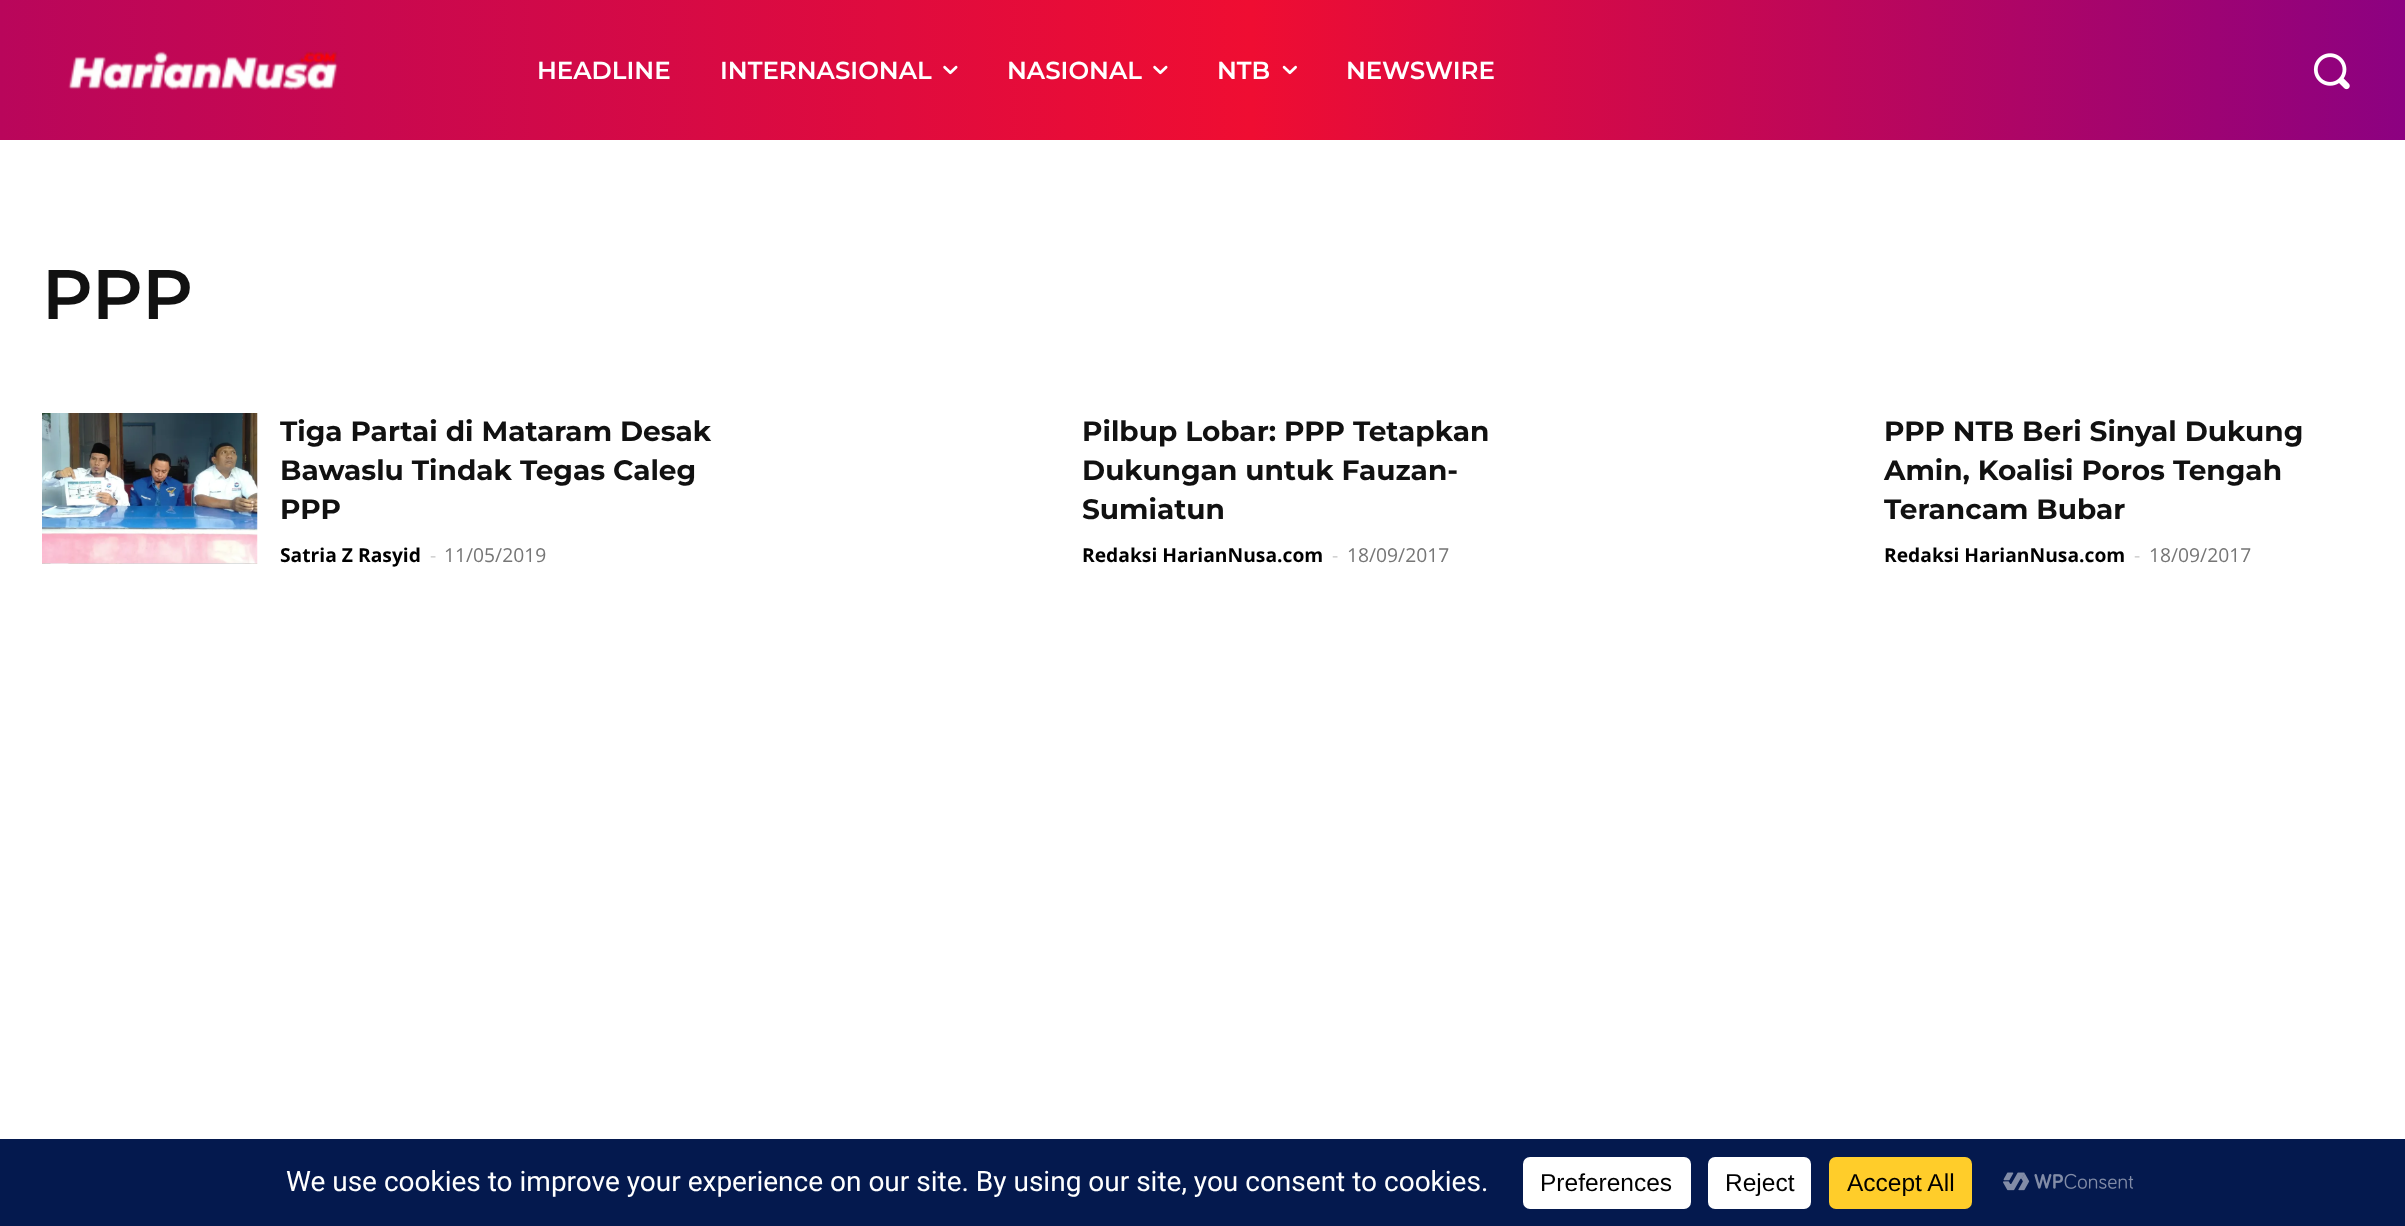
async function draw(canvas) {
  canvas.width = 2405
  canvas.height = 1226
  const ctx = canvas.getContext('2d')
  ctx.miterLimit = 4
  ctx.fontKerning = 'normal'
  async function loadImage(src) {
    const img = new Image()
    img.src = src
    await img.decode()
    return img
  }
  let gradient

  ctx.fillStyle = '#fff'
  ctx.fillRect(0, 0, 2405, 1226)
  gradient = ctx.createLinearGradient(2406, 70, 0, 70)
  gradient.addColorStop(0, '#8c0181')
  gradient.addColorStop(0.48, '#ef0d32')
  gradient.addColorStop(1, '#b9065b')
  ctx.fillStyle = gradient
  ctx.fillRect(0, 0, 2405, 140)
  ctx.drawImage(await loadImage('image0.png'), 68, 51, 270, 39)
  ctx.font = '600 24.5px Montserrat'
  ctx.fillStyle = '#fff'
  ctx.fillText('HEADLINE', 537, 79)
  ctx.fillText('INTERNASIONAL', 720, 79)
  ctx.drawImage(await loadImage('image1.png'), 943, 65, 15, 10)
  ctx.fillText('NASIONAL', 1007, 79)
  ctx.drawImage(await loadImage('image2.png'), 1153, 65, 15, 10)
  ctx.fillText('NTB', 1217, 79)
  ctx.drawImage(await loadImage('image3.png'), 1282, 65, 15, 10)
  ctx.fillText('NEWSWIRE', 1346, 79)
  ctx.drawImage(await loadImage('image4.png'), 2313, 53, 37, 37)
  ctx.font = '600 70px Montserrat'
  ctx.fillStyle = '#111'
  ctx.fillText('PPP', 42, 319)
  ctx.drawImage(await loadImage('image5.png'), 42, 413, 216, 151)
  ctx.font = 'bold 28px Montserrat'
  ctx.fillText('Tiga Partai di Mataram Desak', 280, 441)
  ctx.fillText('Bawaslu Tindak Tegas Caleg', 280, 480)
  ctx.fillText('PPP', 280, 519)
  ctx.font = 'bold 19.25px Open Sans'
  ctx.fillStyle = '#000'
  ctx.fillText('Satria Z Rasyid', 280, 562)
  ctx.font = '19.25px Open Sans'
  ctx.fillStyle = '#ccc'
  ctx.fillText('-', 430, 562)
  ctx.fillStyle = '#767676'
  ctx.fillText('11/05/2019', 444, 562)
  ctx.font = 'bold 28px Montserrat'
  ctx.fillStyle = '#111'
  ctx.fillText('Pilbup Lobar: PPP Tetapkan', 1082, 441)
  ctx.fillText('Dukungan untuk Fauzan-', 1082, 480)
  ctx.fillText('Sumiatun', 1082, 519)
  ctx.font = 'bold 19.25px Open Sans'
  ctx.fillStyle = '#000'
  ctx.fillText('Redaksi HarianNusa.com', 1082, 562)
  ctx.font = '19.25px Open Sans'
  ctx.fillStyle = '#ccc'
  ctx.fillText('-', 1332, 562)
  ctx.fillStyle = '#767676'
  ctx.fillText('18/09/2017', 1347, 562)
  ctx.font = 'bold 28px Montserrat'
  ctx.fillStyle = '#111'
  ctx.fillText('PPP NTB Beri Sinyal Dukung', 1884, 441)
  ctx.fillText('Amin, Koalisi Poros Tengah', 1884, 480)
  ctx.fillText('Terancam Bubar', 1884, 519)
  ctx.font = 'bold 19.25px Open Sans'
  ctx.fillStyle = '#000'
  ctx.fillText('Redaksi HarianNusa.com', 1884, 562)
  ctx.font = '19.25px Open Sans'
  ctx.fillStyle = '#ccc'
  ctx.fillText('-', 2134, 562)
  ctx.fillStyle = '#767676'
  ctx.fillText('18/09/2017', 2149, 562)
  ctx.fillStyle = '#04194e'
  ctx.fillRect(0, 1139, 2405, 87)
  ctx.font = '28px Roboto'
  ctx.fillStyle = '#fff'
  ctx.fillText('We use cookies to improve your experience on our site. By using our site, you consent to cookies.', 286, 1191)
  ctx.beginPath()
  ctx.roundRect(1523, 1157, 168, 52, 7)
  ctx.fill()
  ctx.font = '24.5px Liberation Sans'
  ctx.fillStyle = '#000'
  ctx.fillText('Preferences', 1540, 1191)
  ctx.fillStyle = '#fff'
  ctx.beginPath()
  ctx.roundRect(1708, 1157, 103, 52, 7)
  ctx.fill()
  ctx.fillStyle = '#000'
  ctx.fillText('Reject', 1725, 1191)
  ctx.fillStyle = '#ffcd2a'
  ctx.beginPath()
  ctx.roundRect(1829, 1157, 143, 52, 7)
  ctx.fill()
  ctx.fillStyle = '#000'
  ctx.fillText('Accept All', 1847, 1191)
  ctx.drawImage(await loadImage('image6.png'), 2003, 1172, 131, 19)
}

draw(document.querySelector('canvas'))
